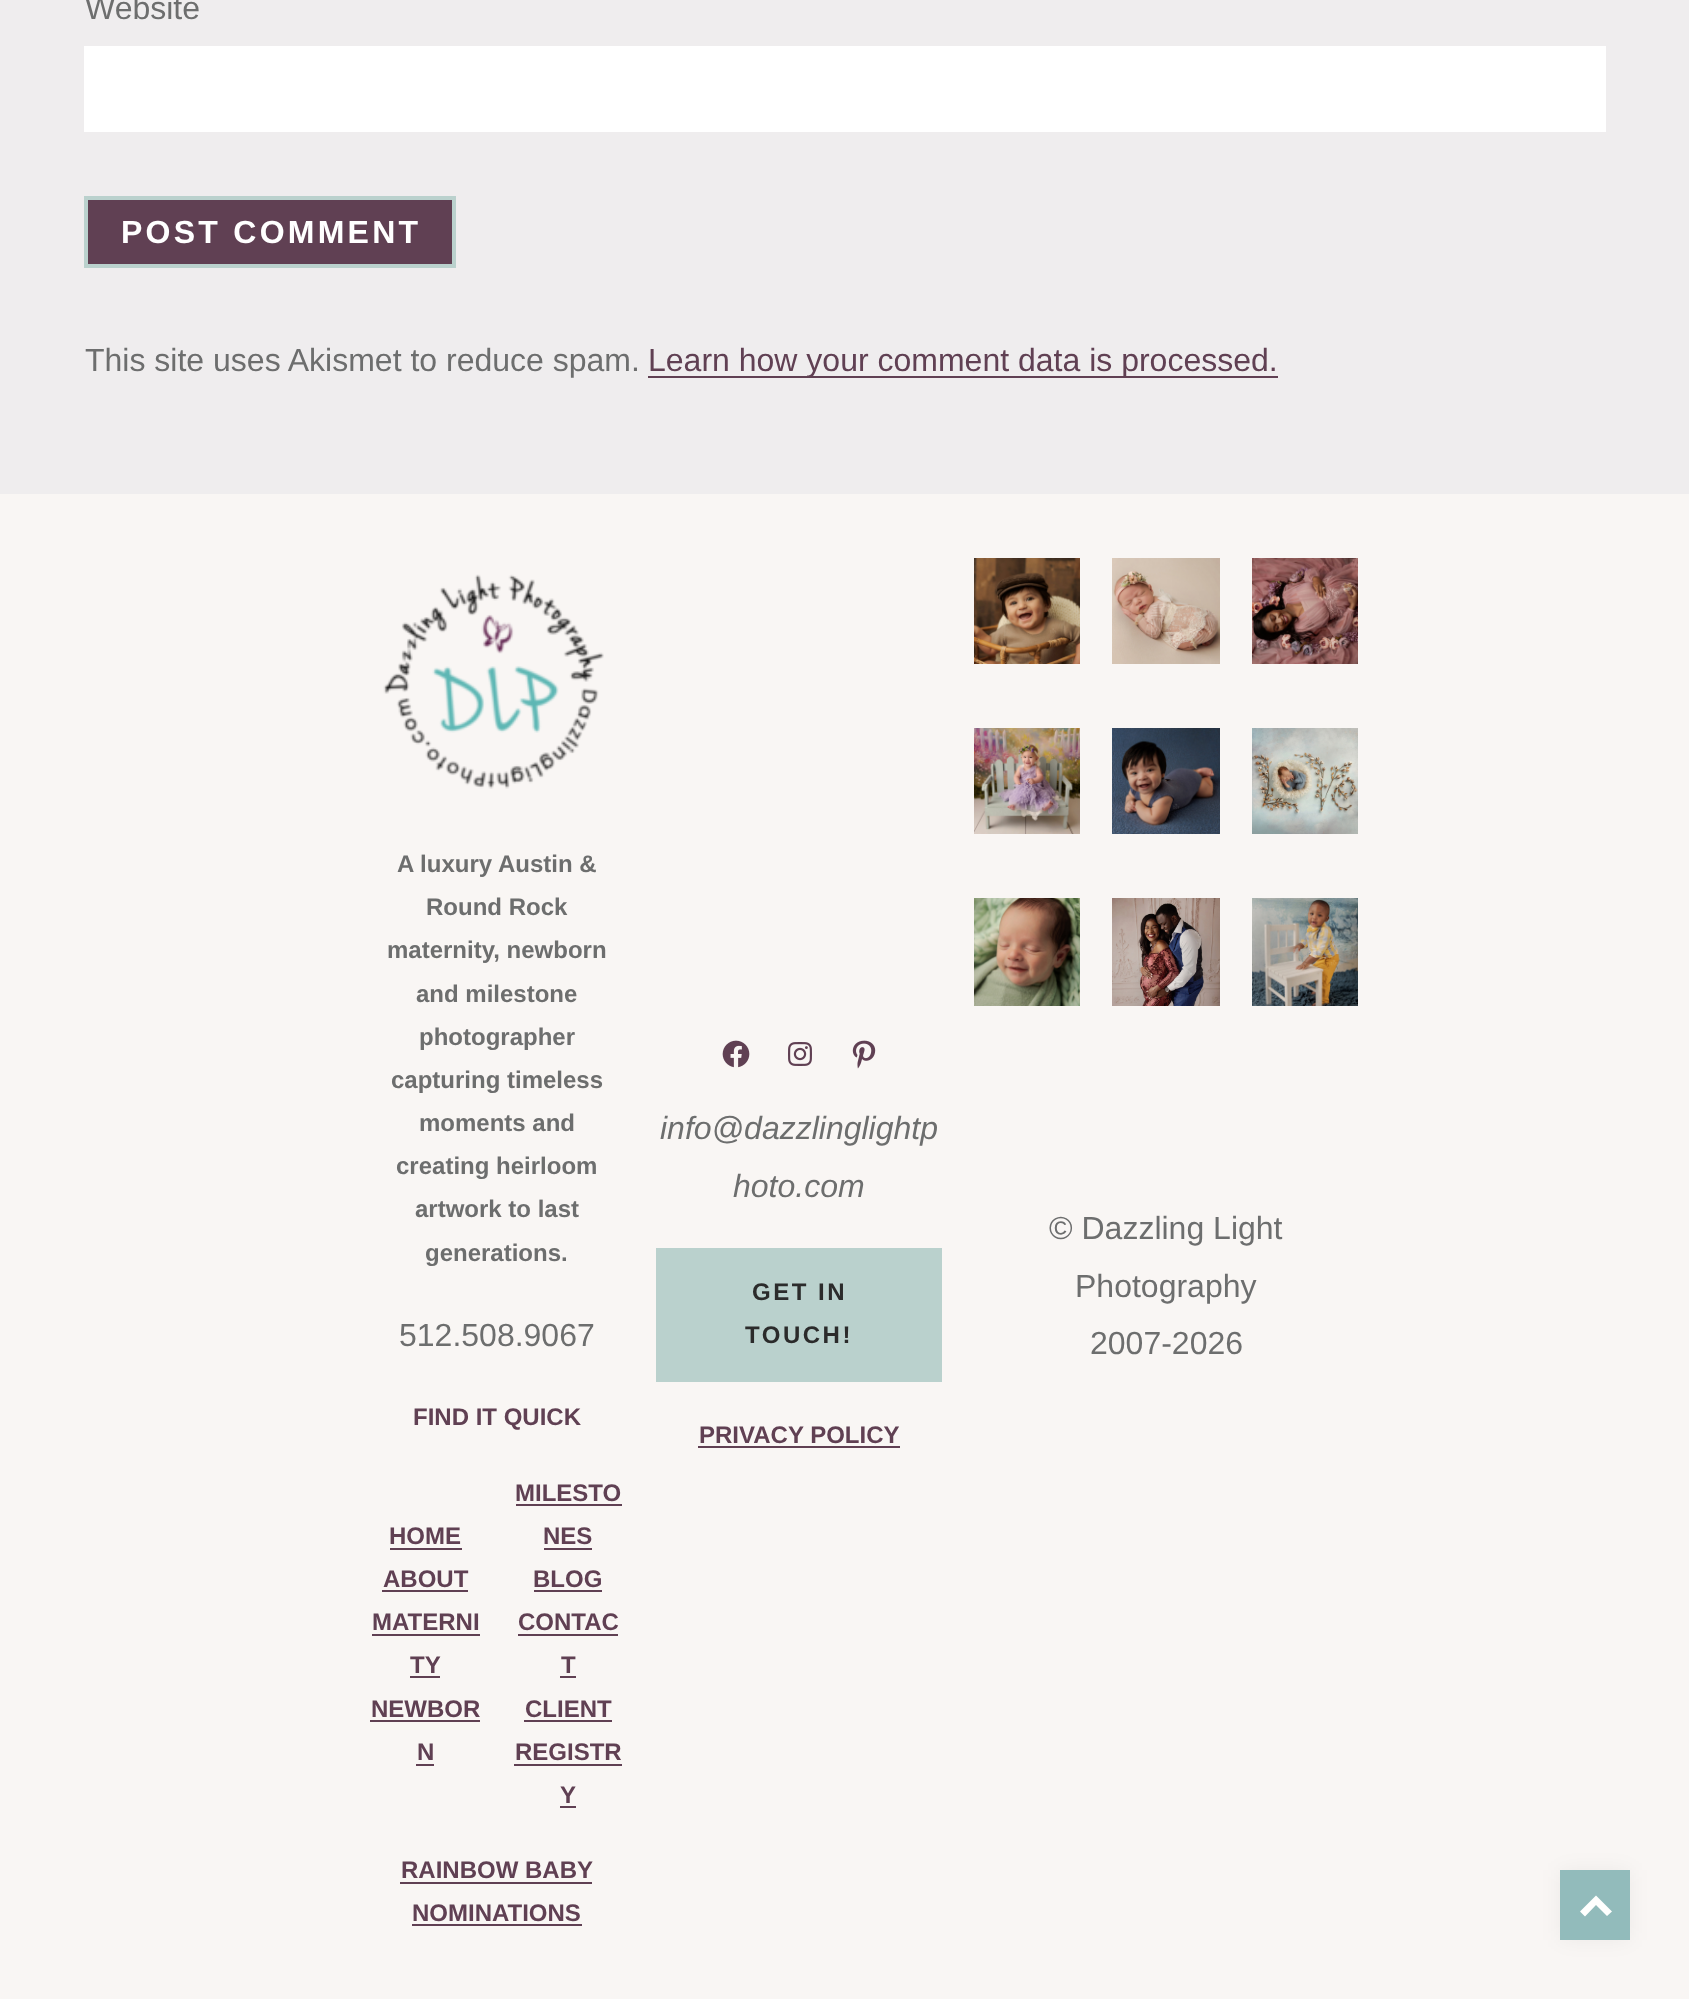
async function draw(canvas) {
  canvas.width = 1689
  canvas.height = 1999
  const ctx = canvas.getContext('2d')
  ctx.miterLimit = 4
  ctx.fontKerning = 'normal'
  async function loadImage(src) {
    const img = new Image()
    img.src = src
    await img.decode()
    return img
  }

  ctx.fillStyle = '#efedee'
  ctx.fillRect(0, 0, 1689, 1999)
  ctx.font = '32px Liberation Sans'
  ctx.fillStyle = '#6d6e6e'
  ctx.fillText('Website', 85, 19)
  ctx.fillStyle = '#fff'
  ctx.fillRect(84, 46, 1522, 86)
  ctx.fillStyle = '#604053'
  ctx.beginPath()
  ctx.rect(86, 198, 368, 68)
  ctx.fill()
  ctx.strokeStyle = '#bad1cd'
  ctx.lineWidth = 4
  ctx.stroke()
  ctx.letterSpacing = '3.25px'
  ctx.font = 'bold 32px Liberation Sans'
  ctx.fillStyle = '#fff'
  ctx.fillText('POST COMMENT', 121, 243)
  ctx.letterSpacing = '0px'
  ctx.font = '32px Liberation Sans'
  ctx.fillStyle = '#6d6e6e'
  ctx.fillText('This site uses Akismet to reduce spam.', 85, 371)
  ctx.fillStyle = '#604053'
  ctx.fillRect(648, 376, 630, 2)
  ctx.fillText('Learn how your comment data is processed.', 648, 371)
  ctx.fillStyle = '#f9f6f4'
  ctx.fillRect(0, 494, 1689, 1505)
  ctx.drawImage(await loadImage('image0.png'), 383, 574, 221, 215)
  ctx.font = 'bold 24px Liberation Sans'
  ctx.fillStyle = '#6d6e6e'
  ctx.fillText('A luxury Austin &', 397, 872)
  ctx.fillText('Round Rock', 426, 915)
  ctx.fillText('maternity, newborn', 387, 958)
  ctx.fillText('and milestone', 416, 1002)
  ctx.fillText('photographer', 419, 1045)
  ctx.fillText('capturing timeless', 391, 1088)
  ctx.fillText('moments and', 419, 1131)
  ctx.fillText('creating heirloom', 396, 1174)
  ctx.fillText('artwork to last', 415, 1217)
  ctx.fillText('generations.', 425, 1261)
  ctx.font = '32px Liberation Sans'
  ctx.fillText('512.508.9067', 399, 1346)
  ctx.font = 'bold 24px Liberation Sans'
  ctx.fillStyle = '#604053'
  ctx.fillText('FIND IT QUICK', 413, 1425)
  ctx.fillText('HOME', 389, 1544)
  ctx.fillRect(390, 1548, 72, 2)
  ctx.fillText('ABOUT', 383, 1587)
  ctx.fillRect(382, 1590, 86, 2)
  ctx.fillText('MATERNI', 372, 1630)
  ctx.fillRect(372, 1634, 108, 2)
  ctx.fillText('TY', 410, 1673)
  ctx.fillRect(410, 1676, 30, 2)
  ctx.fillText('NEWBOR', 371, 1717)
  ctx.fillRect(370, 1720, 110, 2)
  ctx.fillText('N', 417, 1760)
  ctx.fillRect(416, 1764, 18, 2)
  ctx.fillText('MILESTO', 515, 1501)
  ctx.fillRect(516, 1504, 106, 2)
  ctx.fillText('NES', 543, 1544)
  ctx.fillRect(544, 1548, 48, 2)
  ctx.fillText('BLOG', 533, 1587)
  ctx.fillRect(534, 1590, 68, 2)
  ctx.fillText('CONTAC', 518, 1630)
  ctx.fillRect(518, 1634, 100, 2)
  ctx.fillText('T', 561, 1673)
  ctx.fillRect(560, 1676, 16, 2)
  ctx.fillText('CLIENT', 525, 1717)
  ctx.fillRect(524, 1720, 88, 2)
  ctx.fillText('REGISTR', 515, 1760)
  ctx.fillRect(514, 1764, 108, 2)
  ctx.fillText('Y', 560, 1803)
  ctx.fillRect(560, 1806, 16, 2)
  ctx.fillText('RAINBOW BABY', 401, 1878)
  ctx.fillRect(400, 1882, 192, 2)
  ctx.fillText('NOMINATIONS', 412, 1921)
  ctx.fillRect(412, 1924, 170, 2)
  ctx.drawImage(await loadImage('image1.png'), 722, 1040, 28, 28)
  ctx.drawImage(await loadImage('image2.png'), 788, 1042, 24, 24)
  ctx.drawImage(await loadImage('image3.png'), 852, 1040, 24, 29)
  ctx.font = 'italic 32px Liberation Sans'
  ctx.fillStyle = '#6d6e6e'
  ctx.fillText('info@dazzlinglightp', 660, 1139)
  ctx.fillText('hoto.com', 733, 1197)
  ctx.fillStyle = '#bad1cd'
  ctx.fillRect(656, 1248, 286, 134)
  ctx.letterSpacing = '2.5px'
  ctx.font = 'bold 24px Liberation Sans'
  ctx.fillStyle = '#2b2b2b'
  ctx.fillText('GET IN', 752, 1300)
  ctx.fillText('TOUCH!', 745, 1343)
  ctx.letterSpacing = '0px'
  ctx.fillStyle = '#604053'
  ctx.fillText('PRIVACY POLICY', 699, 1443)
  ctx.fillRect(698, 1446, 202, 2)
  ctx.drawImage(await loadImage('image4.png'), 974, 558, 106, 106)
  ctx.drawImage(await loadImage('image5.png'), 1112, 558, 108, 106)
  ctx.drawImage(await loadImage('image6.png'), 1252, 558, 106, 106)
  ctx.drawImage(await loadImage('image7.png'), 974, 728, 106, 106)
  ctx.drawImage(await loadImage('image8.png'), 1112, 728, 108, 106)
  ctx.drawImage(await loadImage('image9.png'), 1252, 728, 106, 106)
  ctx.drawImage(await loadImage('image10.png'), 974, 898, 106, 108)
  ctx.drawImage(await loadImage('image11.png'), 1112, 898, 108, 108)
  ctx.drawImage(await loadImage('image12.png'), 1252, 898, 106, 108)
  ctx.font = '32px Liberation Sans'
  ctx.fillStyle = '#6d6e6e'
  ctx.fillText('© Dazzling Light', 1049, 1239)
  ctx.fillText('Photography', 1075, 1297)
  ctx.fillText('2007-2026', 1090, 1354)
  ctx.fillStyle = '#0c0c0c0d'
  ctx.filter = 'blur(10px)'
  ctx.beginPath()
  ctx.rect(1560, 1870, 70, 70)
  ctx.fill()
  ctx.filter = 'none'
  ctx.fillStyle = '#92bbbb'
  ctx.fillRect(1560, 1870, 70, 70)
  ctx.fillStyle = '#fffffe'
  ctx.beginPath()
  ctx.moveTo(1596, 1895.5)
  ctx.lineTo(1612, 1911.5)
  ctx.lineTo(1607, 1916)
  ctx.lineTo(1596, 1905)
  ctx.lineTo(1585, 1916.5)
  ctx.lineTo(1580, 1911.5)
  ctx.closePath()
  ctx.fill()
}

draw(document.querySelector('canvas'))
